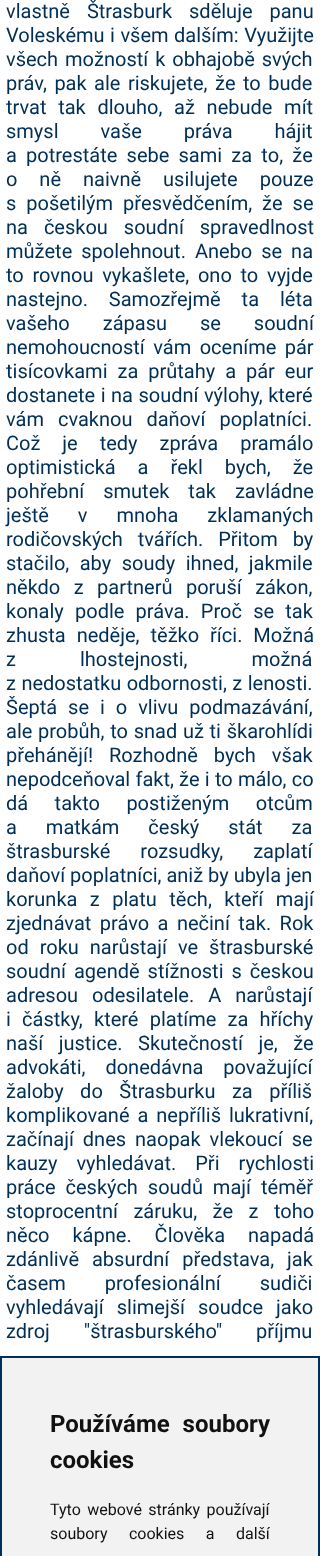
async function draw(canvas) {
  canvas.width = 320
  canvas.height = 1556
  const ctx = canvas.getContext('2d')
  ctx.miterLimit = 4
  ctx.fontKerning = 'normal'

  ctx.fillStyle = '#fff'
  ctx.fillRect(0, 0, 320, 1556)
  ctx.wordSpacing = '12px'
  ctx.font = '20px Roboto'
  ctx.fillStyle = '#002e54'
  ctx.fillText('vlastně Štrasburk sděluje panu', 6, 18)
  ctx.wordSpacing = '0.5px'
  ctx.fillText('Voleskému i všem dalším: Využijte', 6, 42)
  ctx.wordSpacing = '2px'
  ctx.fillText('všech možností k obhajobě svých', 6, 66)
  ctx.wordSpacing = '2.5px'
  ctx.fillText('práv, pak ale riskujete, že to bude', 6, 90)
  ctx.wordSpacing = '6.75px'
  ctx.fillText('trvat tak dlouho, až nebude mít', 6, 114)
  ctx.wordSpacing = '37px'
  ctx.fillText('smysl vaše práva hájit', 6, 138)
  ctx.wordSpacing = '4.25px'
  ctx.fillText('a potrestáte sebe sami za to, že', 6, 162)
  ctx.wordSpacing = '17px'
  ctx.fillText('o ně naivně usilujete pouze', 6, 186)
  ctx.wordSpacing = '5px'
  ctx.fillText('s pošetilým přesvědčením, že se', 6, 210)
  ctx.wordSpacing = '11px'
  ctx.fillText('na českou soudní spravedlnost', 6, 234)
  ctx.wordSpacing = '4px'
  ctx.fillText('můžete spolehnout. Anebo se na', 6, 258)
  ctx.wordSpacing = '3.75px'
  ctx.fillText('to rovnou vykašlete, ono to vyjde', 6, 282)
  ctx.wordSpacing = '16px'
  ctx.fillText('nastejno. Samozřejmě ta léta', 6, 306)
  ctx.wordSpacing = '28px'
  ctx.fillText('vašeho zápasu se soudní', 6, 330)
  ctx.wordSpacing = '3.5px'
  ctx.fillText('nemohoucností vám oceníme pár', 6, 354)
  ctx.wordSpacing = '5px'
  ctx.fillText('tisícovkami za průtahy a pár eur', 6, 378)
  ctx.wordSpacing = '0.5px'
  ctx.fillText('dostanete i na soudní výlohy, které', 6, 402)
  ctx.wordSpacing = '9px'
  ctx.fillText('vám cvaknou daňoví poplatníci.', 6, 426)
  ctx.wordSpacing = '17px'
  ctx.fillText('Což je tedy zpráva pramálo', 6, 450)
  ctx.fillText('optimistická a řekl bych, že', 6, 474)
  ctx.wordSpacing = '14px'
  ctx.fillText('pohřební smutek tak zavládne', 6, 498)
  ctx.wordSpacing = '24px'
  ctx.fillText('ještě v mnoha zklamaných', 6, 522)
  ctx.wordSpacing = '10px'
  ctx.fillText('rodičovských tvářích. Přitom by', 6, 546)
  ctx.wordSpacing = '5.5px'
  ctx.fillText('stačilo, aby soudy ihned, jakmile', 6, 570)
  ctx.wordSpacing = '8.5px'
  ctx.fillText('někdo z partnerů poruší zákon,', 6, 594)
  ctx.wordSpacing = '6.25px'
  ctx.fillText('konaly podle práva. Proč se tak', 6, 618)
  ctx.wordSpacing = '6px'
  ctx.fillText('zhusta neděje, těžko říci. Možná', 6, 642)
  ctx.wordSpacing = '59px'
  ctx.fillText('z lhostejnosti, možná', 6, 666)
  ctx.wordSpacing = '0.5px'
  ctx.fillText('z nedostatku odbornosti, z lenosti.', 6, 690)
  ctx.wordSpacing = '6px'
  ctx.fillText('Šeptá se i o vlivu podmazávání,', 6, 714)
  ctx.wordSpacing = '0.75px'
  ctx.fillText('ale probůh, to snad už ti škarohlídi', 6, 738)
  ctx.wordSpacing = '11px'
  ctx.fillText('přehánějí! Rozhodně bych však', 6, 762)
  ctx.wordSpacing = '0.25px'
  ctx.fillText('nepodceňoval fakt, že i to málo, co', 6, 786)
  ctx.wordSpacing = '21.5px'
  ctx.fillText('dá takto postiženým otcům', 6, 810)
  ctx.wordSpacing = '24px'
  ctx.fillText('a matkám český stát za', 6, 834)
  ctx.wordSpacing = '25px'
  ctx.fillText('štrasburské rozsudky, zaplatí', 6, 858)
  ctx.wordSpacing = '0px'
  ctx.fillText('daňoví poplatníci, aniž by ubyla jen', 6, 882)
  ctx.wordSpacing = '7.5px'
  ctx.fillText('korunka z platu těch, kteří mají', 6, 906)
  ctx.wordSpacing = '3.5px'
  ctx.fillText('zjednávat právo a nečiní tak. Rok', 6, 930)
  ctx.wordSpacing = '6px'
  ctx.fillText('od roku narůstají ve štrasburské', 6, 954)
  ctx.wordSpacing = '3px'
  ctx.fillText('soudní agendě stížnosti s českou', 6, 978)
  ctx.wordSpacing = '9px'
  ctx.fillText('adresou odesilatele. A narůstají', 6, 1002)
  ctx.wordSpacing = '6.25px'
  ctx.fillText('i částky, které platíme za hříchy', 6, 1026)
  ctx.wordSpacing = '10.5px'
  ctx.fillText('naší justice. Skutečností je, že', 6, 1050)
  ctx.wordSpacing = '15px'
  ctx.fillText('advokáti, donedávna považující', 6, 1074)
  ctx.wordSpacing = '11.5px'
  ctx.fillText('žaloby do Štrasburku za příliš', 6, 1098)
  ctx.wordSpacing = '3px'
  ctx.fillText('komplikované a nepříliš lukrativní,', 6, 1122)
  ctx.wordSpacing = '4px'
  ctx.fillText('začínají dnes naopak vlekoucí se', 6, 1146)
  ctx.wordSpacing = '14px'
  ctx.fillText('kauzy vyhledávat. Při rychlosti', 6, 1170)
  ctx.wordSpacing = '5px'
  ctx.fillText('práce českých soudů mají téměř', 6, 1194)
  ctx.wordSpacing = '10.5px'
  ctx.fillText('stoprocentní záruku, že z toho', 6, 1218)
  ctx.wordSpacing = '18px'
  ctx.fillText('něco kápne. Člověka napadá', 6, 1242)
  ctx.wordSpacing = '8px'
  ctx.fillText('zdánlivě absurdní představa, jak', 6, 1266)
  ctx.wordSpacing = '34px'
  ctx.fillText('časem profesionální sudiči', 6, 1290)
  ctx.wordSpacing = '8px'
  ctx.fillText('vyhledávají slimejší soudce jako', 6, 1314)
  ctx.wordSpacing = '29px'
  ctx.fillText('zdroj "štrasburského" příjmu', 6, 1338)
  ctx.fillStyle = '#f2f2f2'
  ctx.beginPath()
  ctx.rect(1, 1357, 318, 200)
  ctx.fill()
  ctx.strokeStyle = '#002e54'
  ctx.lineWidth = 2
  ctx.stroke()
  ctx.wordSpacing = '7px'
  ctx.font = 'bold 24px Roboto'
  ctx.fillStyle = '#111'
  ctx.fillText('Používáme soubory', 50, 1432)
  ctx.wordSpacing = '0px'
  ctx.fillText('cookies', 50, 1468)
  ctx.wordSpacing = '2.5px'
  ctx.font = '16px Roboto'
  ctx.fillText('Tyto webové stránky používají', 50, 1515)
  ctx.wordSpacing = '17.5px'
  ctx.fillText('soubory cookies a další', 50, 1539)
}

draw(document.querySelector('canvas'))
